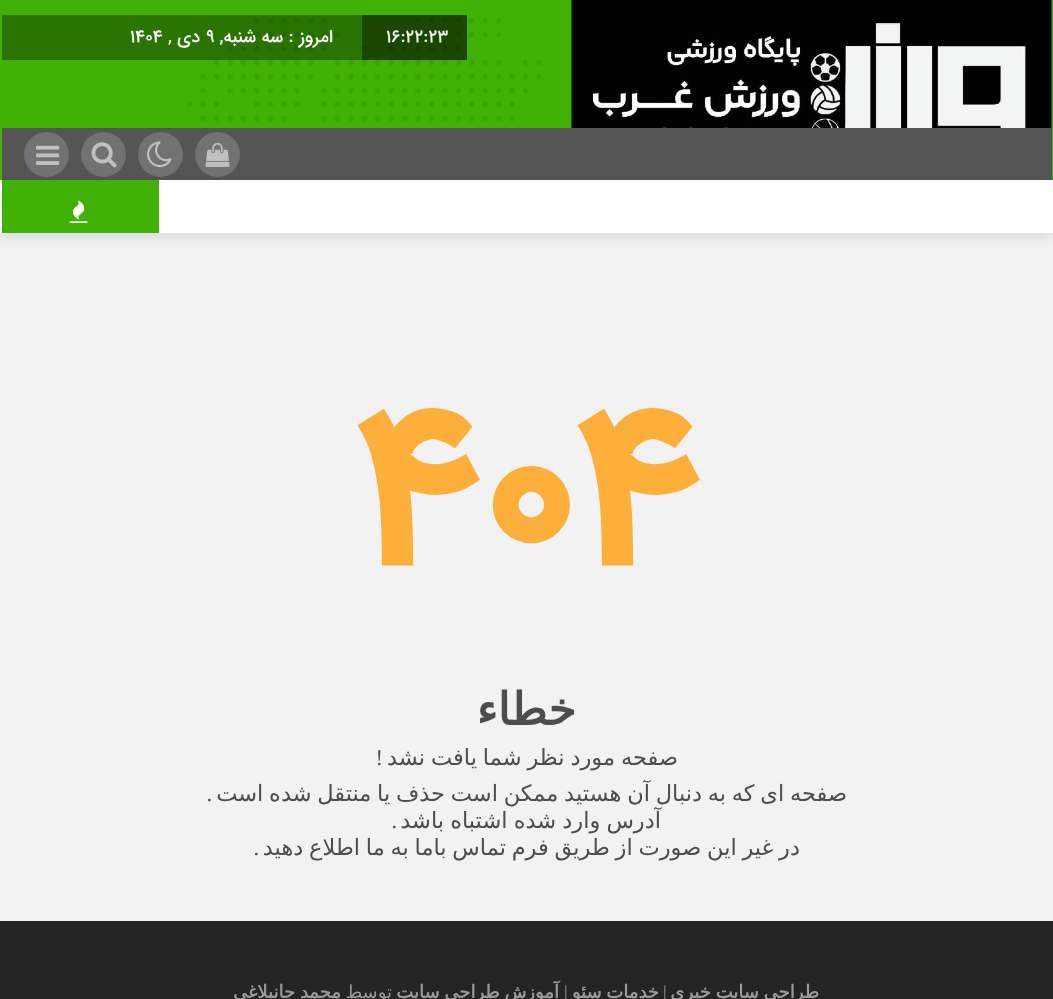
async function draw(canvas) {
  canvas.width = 1053
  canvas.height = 999
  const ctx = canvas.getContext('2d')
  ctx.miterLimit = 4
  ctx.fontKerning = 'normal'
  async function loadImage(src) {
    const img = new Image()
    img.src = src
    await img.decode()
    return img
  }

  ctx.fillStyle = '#f2f2f2'
  ctx.fillRect(0, 0, 1053, 999)
  ctx.fillStyle = '#41b205'
  ctx.fillRect(0, 0, 1053, 180)
  ctx.drawImage(await loadImage('image0.png'), 186, 17, 356, 105)
  ctx.drawImage(await loadImage('image1.png'), 571, 0, 481, 128)
  ctx.fillStyle = '#00000099'
  ctx.fillRect(362, 15, 105, 45)
  ctx.font = '500 18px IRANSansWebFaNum'
  ctx.fillStyle = '#eee'
  ctx.fillText('16:22:23', 386, 42)
  ctx.fillStyle = '#00000059'
  ctx.fillRect(2, 15, 360, 45)
  ctx.direction = 'rtl'
  ctx.fillStyle = '#fff'
  ctx.fillText('امروز : سه شنبه,', 333, 42)
  ctx.direction = 'ltr'
  ctx.fillText('۹', 206, 42)
  ctx.direction = 'rtl'
  ctx.fillText('دی ,', 200, 42)
  ctx.direction = 'ltr'
  ctx.fillText('۱۴۰۴', 130, 42)
  ctx.fillStyle = '#555'
  ctx.fillRect(2, 128, 1050, 52)
  ctx.fillStyle = '#727272'
  ctx.beginPath()
  ctx.arc(217.5, 154.5, 22.5, 0, 2 * Math.PI)
  ctx.fill()
  ctx.drawImage(await loadImage('image2.png'), 205, 142, 25, 25)
  ctx.beginPath()
  ctx.arc(160.5, 154.5, 22.5, 0, 2 * Math.PI)
  ctx.fill()
  ctx.drawImage(await loadImage('image3.png'), 147, 141, 25, 27)
  ctx.beginPath()
  ctx.arc(103.5, 154.5, 22.5, 0, 2 * Math.PI)
  ctx.fill()
  ctx.drawImage(await loadImage('image4.png'), 91, 142, 26, 26)
  ctx.beginPath()
  ctx.arc(46.5, 154.5, 22.5, 0, 2 * Math.PI)
  ctx.fill()
  ctx.drawImage(await loadImage('image5.png'), 36, 145, 24, 20)
  ctx.fillStyle = '#0000001a'
  ctx.filter = 'blur(6px)'
  ctx.beginPath()
  ctx.rect(0, 185, 1053, 52)
  ctx.fill()
  ctx.filter = 'none'
  ctx.fillStyle = '#fff'
  ctx.fillRect(0, 180, 1053, 53)
  ctx.fillStyle = '#41b205'
  ctx.fillRect(4, 180, 155, 53)
  ctx.fillStyle = '#3fad05'
  ctx.fillRect(2, 180, 2, 53)
  ctx.drawImage(await loadImage('image6.png'), 69, 200, 19, 23)
  ctx.font = 'bold 225px IRANSansWebFaNum'
  ctx.fillStyle = '#fcb03b'
  ctx.fillText('404', 355, 561)
  ctx.direction = 'rtl'
  ctx.font = 'bold 45px DejaVu Sans'
  ctx.fillStyle = '#4d4d4d'
  ctx.fillText('خطاء', 576, 725)
  ctx.wordSpacing = '-1.25px'
  ctx.font = '22.5px DejaVu Sans'
  ctx.fillText('صفحه مورد نظر شما یافت نشد', 678, 765)
  ctx.wordSpacing = '0px'
  ctx.font = '22.5px Liberation Serif'
  ctx.fillText('!', 383, 765)
  ctx.wordSpacing = '-1.4px'
  ctx.font = '22.5px DejaVu Sans'
  ctx.fillText('صفحه ای که به دنبال آن هستید ممکن است حذف یا منتقل شده است', 847, 801)
  ctx.wordSpacing = '0px'
  ctx.font = '22.5px Liberation Serif'
  ctx.fillText('.', 212, 801)
  ctx.wordSpacing = '-1px'
  ctx.font = '22.5px DejaVu Sans'
  ctx.fillText('آدرس وارد شده اشتباه باشد', 661, 828)
  ctx.wordSpacing = '0px'
  ctx.font = '22.5px Liberation Serif'
  ctx.fillText('.', 397, 828)
  ctx.wordSpacing = '-1.4px'
  ctx.font = '22.5px DejaVu Sans'
  ctx.fillText('در غیر این صورت از طریق فرم تماس باما به ما اطلاع دهید', 800, 855)
  ctx.wordSpacing = '0px'
  ctx.font = '22.5px Liberation Serif'
  ctx.fillText('.', 259, 855)
  ctx.fillStyle = '#242424'
  ctx.fillRect(0, 921, 1053, 78)
  ctx.wordSpacing = '-1px'
  ctx.font = 'bold 18px DejaVu Sans'
  ctx.fillStyle = '#999'
  ctx.fillText('طراحی سایت خبری', 819, 998)
  ctx.wordSpacing = '0px'
  ctx.direction = 'ltr'
  ctx.font = '18px Liberation Serif'
  ctx.fillText('|', 663, 998)
  ctx.wordSpacing = '-1px'
  ctx.direction = 'rtl'
  ctx.font = 'bold 18px DejaVu Sans'
  ctx.fillText('خدمات سئو', 659, 998)
  ctx.wordSpacing = '0px'
  ctx.direction = 'ltr'
  ctx.font = '18px Liberation Serif'
  ctx.fillText('|', 564, 998)
  ctx.wordSpacing = '-1px'
  ctx.direction = 'rtl'
  ctx.font = 'bold 18px DejaVu Sans'
  ctx.fillText('آموزش طراحی سایت', 559, 998)
  ctx.wordSpacing = '0px'
  ctx.font = '18px DejaVu Sans'
  ctx.fillText('توسط', 392, 998)
  ctx.wordSpacing = '-1px'
  ctx.font = 'bold 18px DejaVu Sans'
  ctx.fillText('محمد جانبلاغی', 341, 998)
}

draw(document.querySelector('canvas'))
